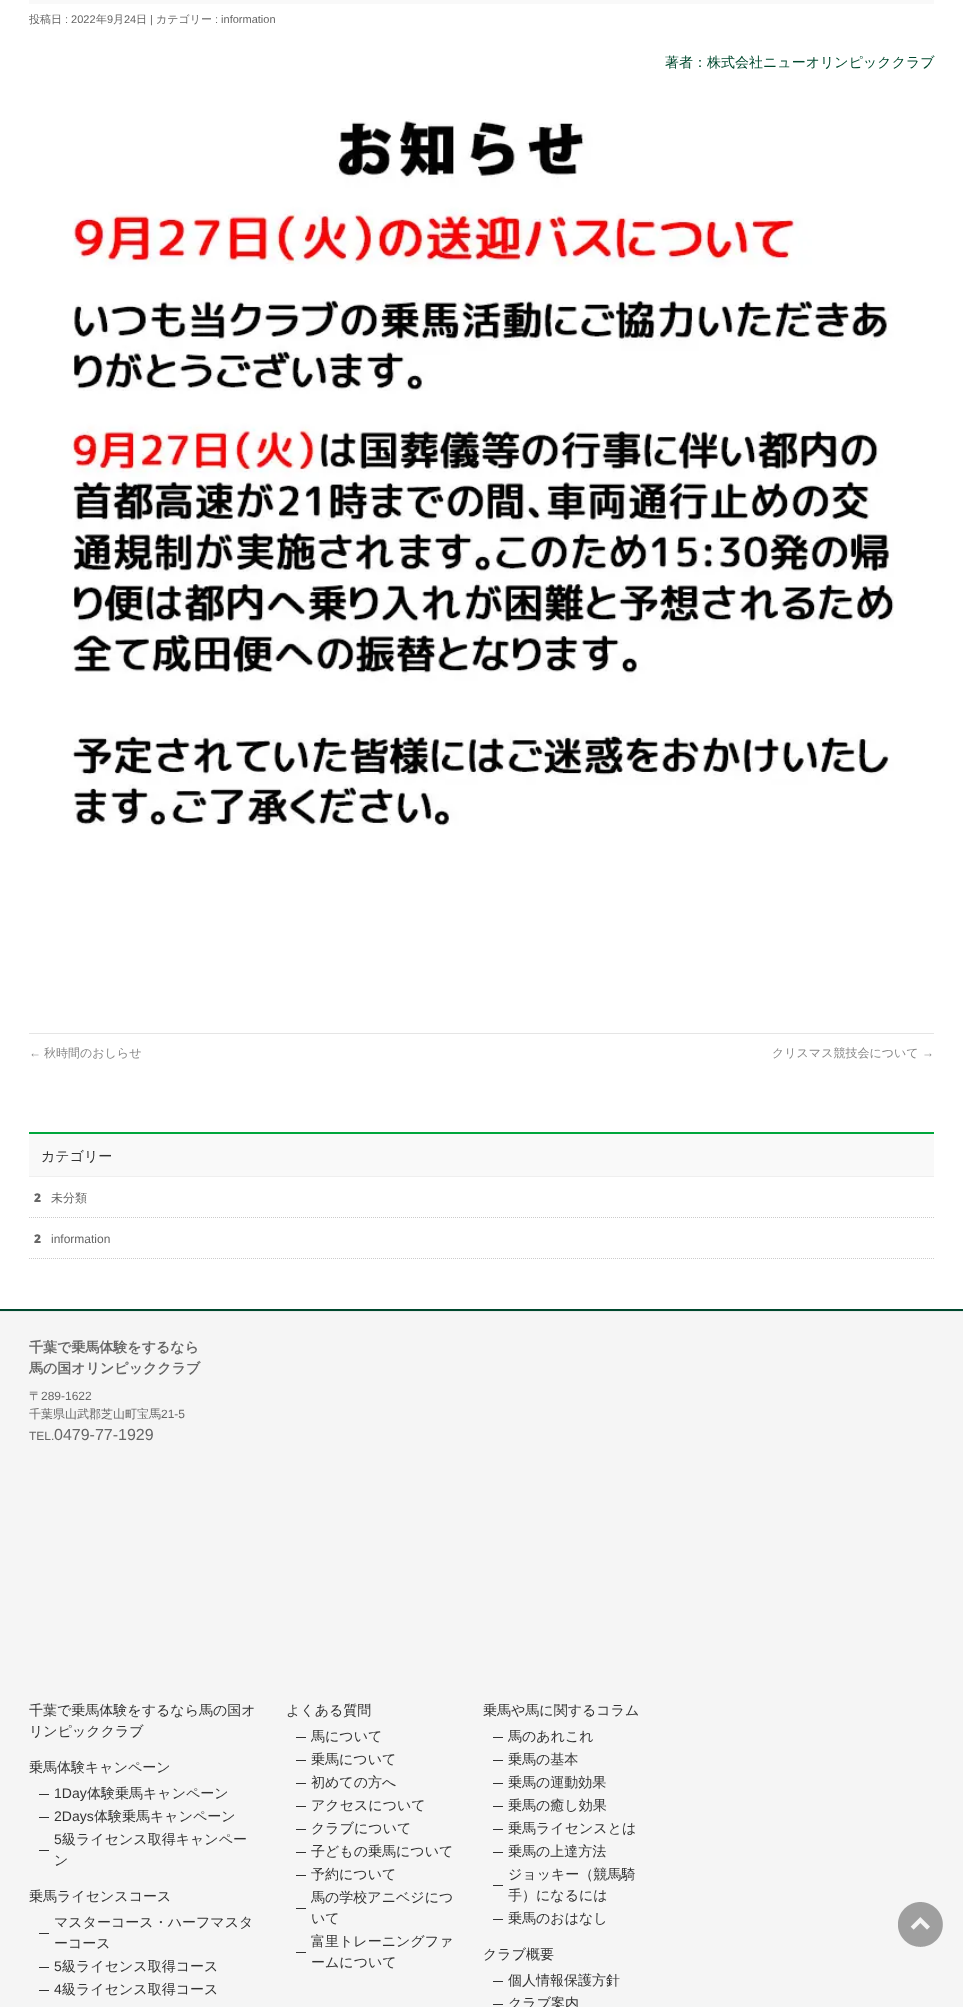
async function draw(canvas) {
  canvas.width = 963
  canvas.height = 2007
  const ctx = canvas.getContext('2d')
  ctx.miterLimit = 4
  ctx.fontKerning = 'normal'
  async function loadImage(src) {
    const img = new Image()
    img.src = src
    await img.decode()
    return img
  }

  ctx.fillStyle = '#fff'
  ctx.fillRect(0, 0, 963, 2007)
  ctx.fillStyle = '#f9f9f9'
  ctx.fillRect(29, 0, 905, 4)
  ctx.font = '500 11px WenQuanYi Zen Hei'
  ctx.fillStyle = '#666'
  ctx.fillText('投稿日', 29, 23)
  ctx.font = '11px Liberation Sans'
  ctx.fillText(': 2022', 65, 23)
  ctx.font = '500 11px WenQuanYi Zen Hei'
  ctx.fillText('年', 96, 23)
  ctx.font = '11px Liberation Sans'
  ctx.fillText('9', 107, 23)
  ctx.font = '500 11px WenQuanYi Zen Hei'
  ctx.fillText('月', 113, 23)
  ctx.font = '11px Liberation Sans'
  ctx.fillText('24', 124, 23)
  ctx.font = '500 11px WenQuanYi Zen Hei'
  ctx.fillText('日', 136, 23)
  ctx.font = '11px Liberation Sans'
  ctx.fillText('|', 150, 23)
  ctx.font = '500 11px WenQuanYi Zen Hei'
  ctx.fillText('カテゴリー', 156, 23)
  ctx.font = '11px Liberation Sans'
  ctx.fillText(': information', 215, 23)
  ctx.font = '500 14px WenQuanYi Zen Hei'
  ctx.fillStyle = '#00482e'
  ctx.fillText('著者：株式会社ニューオリンピッククラブ', 665, 67)
  ctx.drawImage(await loadImage('image0.png'), 70, 119, 824, 707)
  ctx.fillStyle = '#e5e5e5'
  ctx.fillRect(29, 1033, 905, 1)
  ctx.font = '12px Liberation Sans'
  ctx.fillStyle = '#888'
  ctx.fillText('←', 29, 1057)
  ctx.font = '500 12px WenQuanYi Zen Hei'
  ctx.fillText('秋時間のおしらせ', 44, 1057)
  ctx.fillText('クリスマス競技会について', 772, 1057)
  ctx.font = '12px Liberation Sans'
  ctx.fillText('→', 922, 1057)
  ctx.fillStyle = '#f9f9f9'
  ctx.fillRect(29, 1134, 905, 42)
  ctx.fillStyle = '#00a73c'
  ctx.fillRect(29, 1132, 905, 2)
  ctx.fillStyle = '#efefef'
  ctx.fillRect(29, 1176, 905, 1)
  ctx.font = '100 14px Noto Sans'
  ctx.fillStyle = '#333'
  ctx.fillText('カテゴリー', 41, 1161)
  ctx.beginPath()
  ctx.moveTo(29, 1217.5)
  ctx.lineTo(934, 1217.5)
  ctx.strokeStyle = '#ccc'
  ctx.setLineDash([1, 1])
  ctx.stroke()
  ctx.font = '900 12px Noto Sans'
  ctx.fillStyle = '#666'
  ctx.fillText('2', 34, 1202)
  ctx.font = '500 12px WenQuanYi Zen Hei'
  ctx.fillText('未分類', 51, 1202)
  ctx.beginPath()
  ctx.moveTo(29, 1258.5)
  ctx.lineTo(934, 1258.5)
  ctx.stroke()
  ctx.font = '900 12px Noto Sans'
  ctx.fillText('2', 34, 1243)
  ctx.font = '12px Liberation Sans'
  ctx.fillText('information', 51, 1243)
  ctx.fillStyle = '#00482e'
  ctx.fillRect(0, 1309, 963, 2)
  ctx.fillStyle = '#e9e9e9'
  ctx.fillRect(0, 1311, 963, 1)
  ctx.fillStyle = '#f5f5f5'
  ctx.fillRect(0, 1312, 963, 695)
  ctx.font = 'bold 14px WenQuanYi Zen Hei'
  ctx.fillStyle = '#666'
  ctx.fillText('千葉で乗馬体験をするなら', 29, 1352)
  ctx.fillText('馬の国オリンピッククラブ', 29, 1373)
  ctx.font = '500 12px WenQuanYi Zen Hei'
  ctx.fillText('〒', 29, 1400)
  ctx.font = '12px Liberation Sans'
  ctx.fillText('289-1622', 41, 1400)
  ctx.font = '500 12px WenQuanYi Zen Hei'
  ctx.fillText('千葉県山武郡芝山町宝馬', 29, 1418)
  ctx.font = '12px Liberation Sans'
  ctx.fillText('21-5', 161, 1418)
  ctx.fillText('TEL.', 29, 1440)
  ctx.font = '16px Liberation Sans'
  ctx.fillText('0479-77-1929', 54, 1440)
  ctx.font = '500 14px WenQuanYi Zen Hei'
  ctx.fillStyle = '#333'
  ctx.fillText('千葉で乗馬体験をするなら馬の国オ', 29, 1715)
  ctx.fillText('リンピッククラブ', 29, 1736)
  ctx.fillText('乗馬体験キャンペーン', 29, 1772)
  ctx.fillRect(39, 1794, 10, 1)
  ctx.font = '14px Liberation Sans'
  ctx.fillText('1Day', 54, 1798)
  ctx.font = '500 14px WenQuanYi Zen Hei'
  ctx.fillText('体験乗馬キャンペーン', 87, 1798)
  ctx.fillRect(39, 1817, 10, 1)
  ctx.font = '14px Liberation Sans'
  ctx.fillText('2Days', 54, 1821)
  ctx.font = '500 14px WenQuanYi Zen Hei'
  ctx.fillText('体験乗馬キャンペーン', 94, 1821)
  ctx.font = '14px Liberation Sans'
  ctx.fillText('5', 54, 1844)
  ctx.font = '500 14px WenQuanYi Zen Hei'
  ctx.fillText('級ライセンス取得キャンペー', 62, 1844)
  ctx.fillRect(39, 1850, 10, 1)
  ctx.fillText('ン', 54, 1865)
  ctx.fillText('乗馬ライセンスコース', 29, 1901)
  ctx.fillText('マスターコース・ハーフマスタ', 54, 1927)
  ctx.fillRect(39, 1933, 10, 1)
  ctx.fillText('ーコース', 54, 1948)
  ctx.fillRect(39, 1967, 10, 1)
  ctx.font = '14px Liberation Sans'
  ctx.fillText('5', 54, 1971)
  ctx.font = '500 14px WenQuanYi Zen Hei'
  ctx.fillText('級ライセンス取得コース', 62, 1971)
  ctx.fillRect(39, 1990, 10, 1)
  ctx.font = '14px Liberation Sans'
  ctx.fillText('4', 54, 1994)
  ctx.font = '500 14px WenQuanYi Zen Hei'
  ctx.fillText('級ライセンス取得コース', 62, 1994)
  ctx.fillText('よくある質問', 286, 1715)
  ctx.fillRect(296, 1737, 10, 1)
  ctx.fillText('馬について', 311, 1741)
  ctx.fillRect(296, 1760, 10, 1)
  ctx.fillText('乗馬について', 311, 1764)
  ctx.fillRect(296, 1783, 10, 1)
  ctx.fillText('初めての方へ', 311, 1787)
  ctx.fillRect(296, 1806, 10, 1)
  ctx.fillText('アクセスについて', 311, 1810)
  ctx.fillRect(296, 1829, 10, 1)
  ctx.fillText('クラブについて', 311, 1833)
  ctx.fillRect(296, 1852, 10, 1)
  ctx.fillText('子どもの乗馬について', 311, 1856)
  ctx.fillRect(296, 1875, 10, 1)
  ctx.fillText('予約について', 311, 1879)
  ctx.fillText('馬の学校アニベジにつ', 311, 1902)
  ctx.fillRect(296, 1908, 10, 1)
  ctx.fillText('いて', 311, 1923)
  ctx.fillText('富里トレーニングファ', 311, 1946)
  ctx.fillRect(296, 1952, 10, 1)
  ctx.fillText('ームについて', 311, 1967)
  ctx.fillText('乗馬や馬に関するコラム', 483, 1715)
  ctx.fillRect(493, 1737, 10, 1)
  ctx.fillText('馬のあれこれ', 508, 1741)
  ctx.fillRect(493, 1760, 10, 1)
  ctx.fillText('乗馬の基本', 508, 1764)
  ctx.fillRect(493, 1783, 10, 1)
  ctx.fillText('乗馬の運動効果', 508, 1787)
  ctx.fillRect(493, 1806, 10, 1)
  ctx.fillText('乗馬の癒し効果', 508, 1810)
  ctx.fillRect(493, 1829, 10, 1)
  ctx.fillText('乗馬ライセンスとは', 508, 1833)
  ctx.fillRect(493, 1852, 10, 1)
  ctx.fillText('乗馬の上達方法', 508, 1856)
  ctx.fillText('ジョッキー（競馬騎', 508, 1879)
  ctx.fillRect(493, 1885, 10, 1)
  ctx.fillText('手）になるには', 508, 1900)
  ctx.fillRect(493, 1919, 10, 1)
  ctx.fillText('乗馬のおはなし', 508, 1923)
  ctx.fillText('クラブ概要', 483, 1959)
  ctx.fillRect(493, 1981, 10, 1)
  ctx.fillText('個人情報保護方針', 508, 1985)
  ctx.fillRect(493, 2004, 10, 1)
  ctx.fillText('クラブ案内', 508, 2008)
  ctx.drawImage(await loadImage('image1.png'), 898, 1902, 45, 45)
}

draw(document.querySelector('canvas'))
